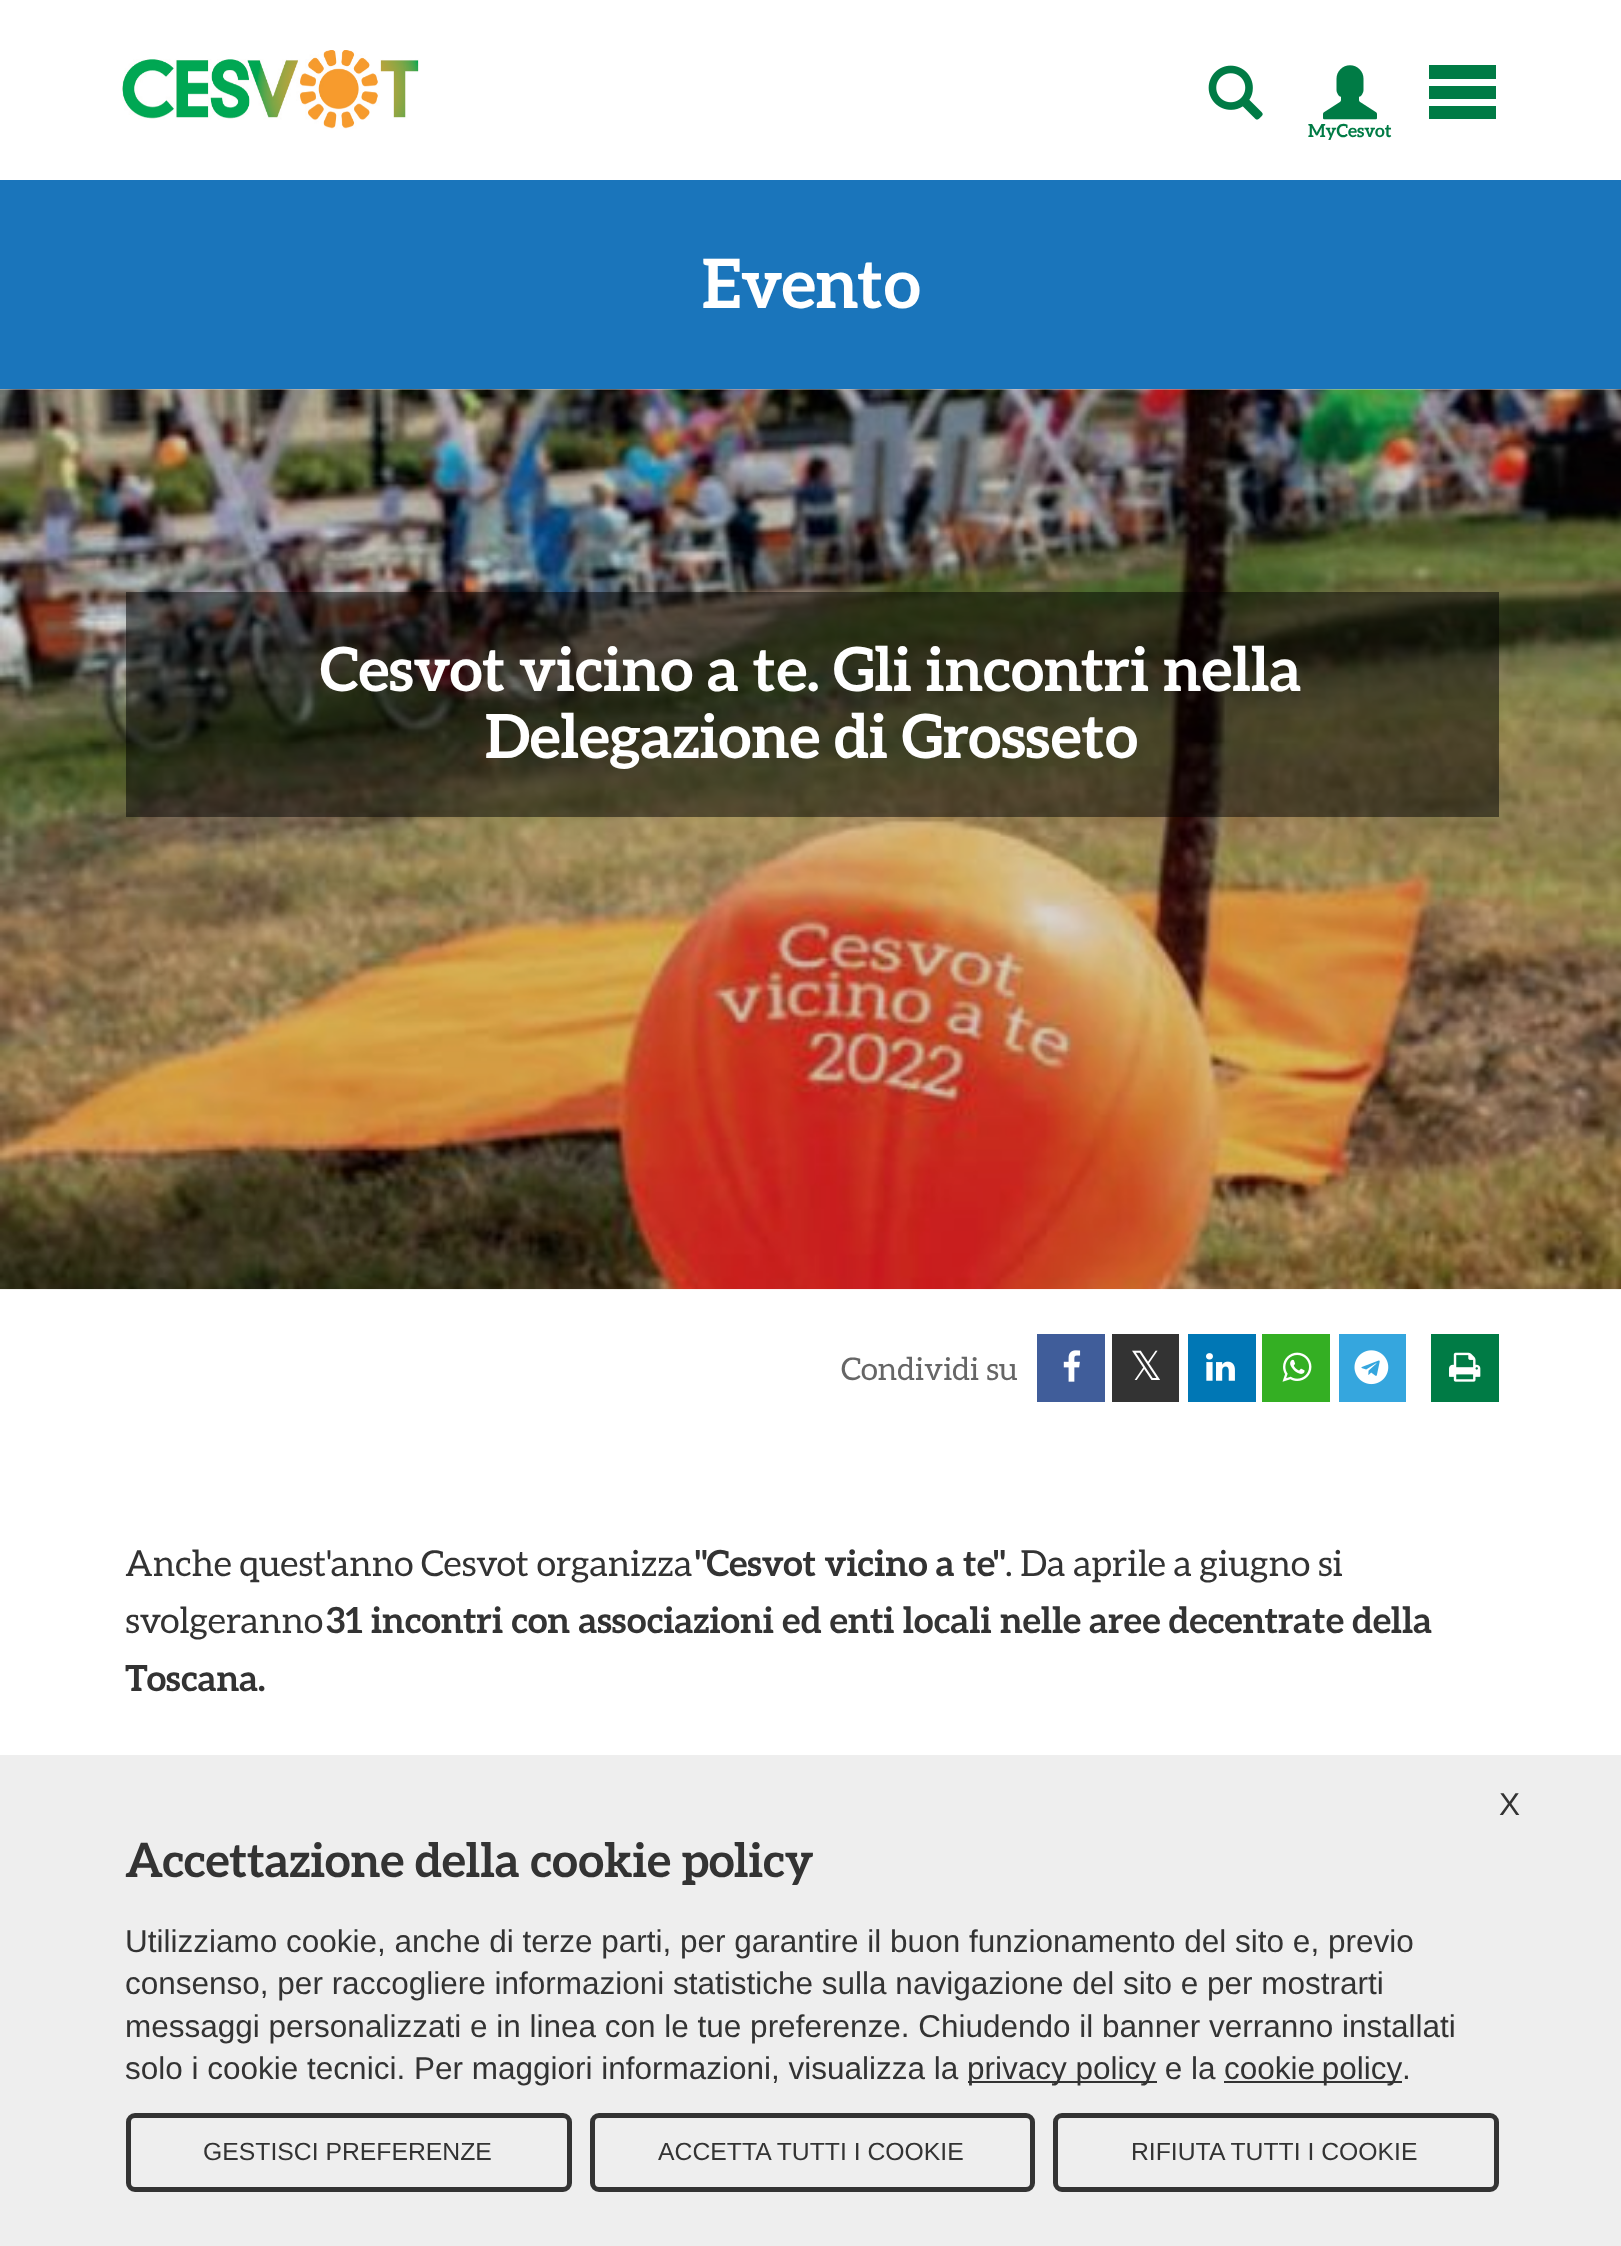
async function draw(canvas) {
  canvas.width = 1621
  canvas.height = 2246
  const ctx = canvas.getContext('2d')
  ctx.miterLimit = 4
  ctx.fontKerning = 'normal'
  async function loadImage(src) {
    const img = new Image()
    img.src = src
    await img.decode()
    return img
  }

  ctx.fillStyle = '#fff'
  ctx.fillRect(0, 0, 1621, 2246)
  ctx.fillStyle = '#d9d9d9'
  ctx.fillRect(0, 389, 1621, 1)
  ctx.drawImage(await loadImage('image0.png'), 122, 50, 297, 79)
  ctx.drawImage(await loadImage('image1.png'), 1208, 65, 55, 55)
  ctx.fillStyle = '#007b45'
  ctx.fillRect(1429, 106, 67, 13)
  ctx.fillRect(1429, 86, 67, 13)
  ctx.fillRect(1429, 65, 67, 14)
  ctx.drawImage(await loadImage('image2.png'), 1323, 65, 54, 55)
  ctx.font = 'bold 18px Aleo'
  ctx.fillText('MyCesvot', 1308, 137)
  ctx.fillStyle = '#1a75bb'
  ctx.fillRect(0, 180, 1621, 209)
  ctx.font = 'bold 68px Aleo'
  ctx.fillStyle = '#fff'
  ctx.fillText('Evento', 702, 308)
  ctx.drawImage(await loadImage('image3.png'), 0, 389, 1621, 901)
  ctx.fillStyle = '#00000080'
  ctx.fillRect(126, 592, 1373, 225)
  ctx.font = 'bold 60.75px Aleo'
  ctx.fillStyle = '#fff'
  ctx.fillText('Cesvot vicino a te. Gli incontri nella', 320, 691)
  ctx.fillText('Delegazione di Grosseto', 485, 758)
  ctx.font = '31.5px Aleo'
  ctx.fillStyle = '#666'
  ctx.fillText('Condividi su', 841, 1380)
  ctx.fillStyle = '#405d9a'
  ctx.fillRect(1037, 1334, 68, 68)
  ctx.drawImage(await loadImage('image4.png'), 1063, 1350, 18, 32)
  ctx.fillStyle = '#333'
  ctx.fillRect(1112, 1334, 67, 68)
  ctx.font = '40px DejaVu Sans'
  ctx.fillStyle = '#fff'
  ctx.fillText('𝕏', 1130, 1380)
  ctx.fillStyle = '#0077b5'
  ctx.fillRect(1188, 1334, 68, 68)
  ctx.drawImage(await loadImage('image5.png'), 1206, 1353, 29, 28)
  ctx.fillStyle = '#34af23'
  ctx.fillRect(1262, 1334, 68, 68)
  ctx.drawImage(await loadImage('image6.png'), 1282, 1352, 30, 30)
  ctx.fillStyle = '#35a6de'
  ctx.fillRect(1339, 1334, 67, 68)
  ctx.drawImage(await loadImage('image7.png'), 1354, 1350, 35, 35)
  ctx.fillStyle = '#007b45'
  ctx.fillRect(1431, 1334, 68, 68)
  ctx.drawImage(await loadImage('image8.png'), 1449, 1352, 32, 30)
  ctx.font = '36px Aleo'
  ctx.fillStyle = '#333'
  ctx.fillText('Anche quest\'anno Cesvot organizza', 125, 1576)
  ctx.font = 'bold 36px Aleo'
  ctx.fillText('"Cesvot vicino a te"', 695, 1576)
  ctx.font = '36px Aleo'
  ctx.fillText('. Da aprile a giugno si', 1005, 1576)
  ctx.fillText('svolgeranno', 125, 1633)
  ctx.font = 'bold 36px Aleo'
  ctx.fillText('31 incontri con associazioni ed enti locali nelle aree decentrate della', 326, 1633)
  ctx.fillText('Toscana.', 125, 1691)
  ctx.fillStyle = '#eee'
  ctx.fillRect(0, 1755, 1621, 491)
  ctx.font = '31.5px Liberation Sans'
  ctx.fillStyle = '#333'
  ctx.fillText('X', 1499, 1815)
  ctx.font = 'bold 47.25px Aleo'
  ctx.fillText('Accettazione della cookie policy', 125, 1877)
  ctx.font = '31.5px Liberation Sans'
  ctx.fillText('Utilizziamo cookie, anche di terze parti, per garantire il buon funzionamento del sito e, previo', 125, 1952)
  ctx.fillText('consenso, per raccogliere informazioni statistiche sulla navigazione del sito e per mostrarti', 125, 1994)
  ctx.fillText('messaggi personalizzati e in linea con le tue preferenze. Chiudendo il banner verranno installati', 125, 2037)
  ctx.fillText('solo i cookie tecnici. Per maggiori informazioni, visualizza la', 125, 2079)
  ctx.fillRect(968, 2081, 189, 2)
  ctx.fillText('privacy policy e la', 967, 2079)
  ctx.fillRect(1224, 2081, 178, 2)
  ctx.wordSpacing = '-2px'
  ctx.fillText('cookie policy', 1224, 2079)
  ctx.wordSpacing = '0px'
  ctx.fillText('.', 1402, 2079)
  ctx.beginPath()
  ctx.roundRect(128.5, 2115.5, 441, 74, 6.5)
  ctx.strokeStyle = '#333'
  ctx.lineWidth = 5
  ctx.stroke()
  ctx.font = '24.75px Liberation Sans'
  ctx.fillText('GESTISCI PREFERENZE', 203, 2160)
  ctx.beginPath()
  ctx.roundRect(592.5, 2115.5, 440, 74, 6.5)
  ctx.stroke()
  ctx.fillText('ACCETTA TUTTI I COOKIE', 658, 2160)
  ctx.beginPath()
  ctx.roundRect(1055.5, 2115.5, 441, 74, 6.5)
  ctx.stroke()
  ctx.fillText('RIFIUTA TUTTI I COOKIE', 1131, 2160)
}

draw(document.querySelector('canvas'))
